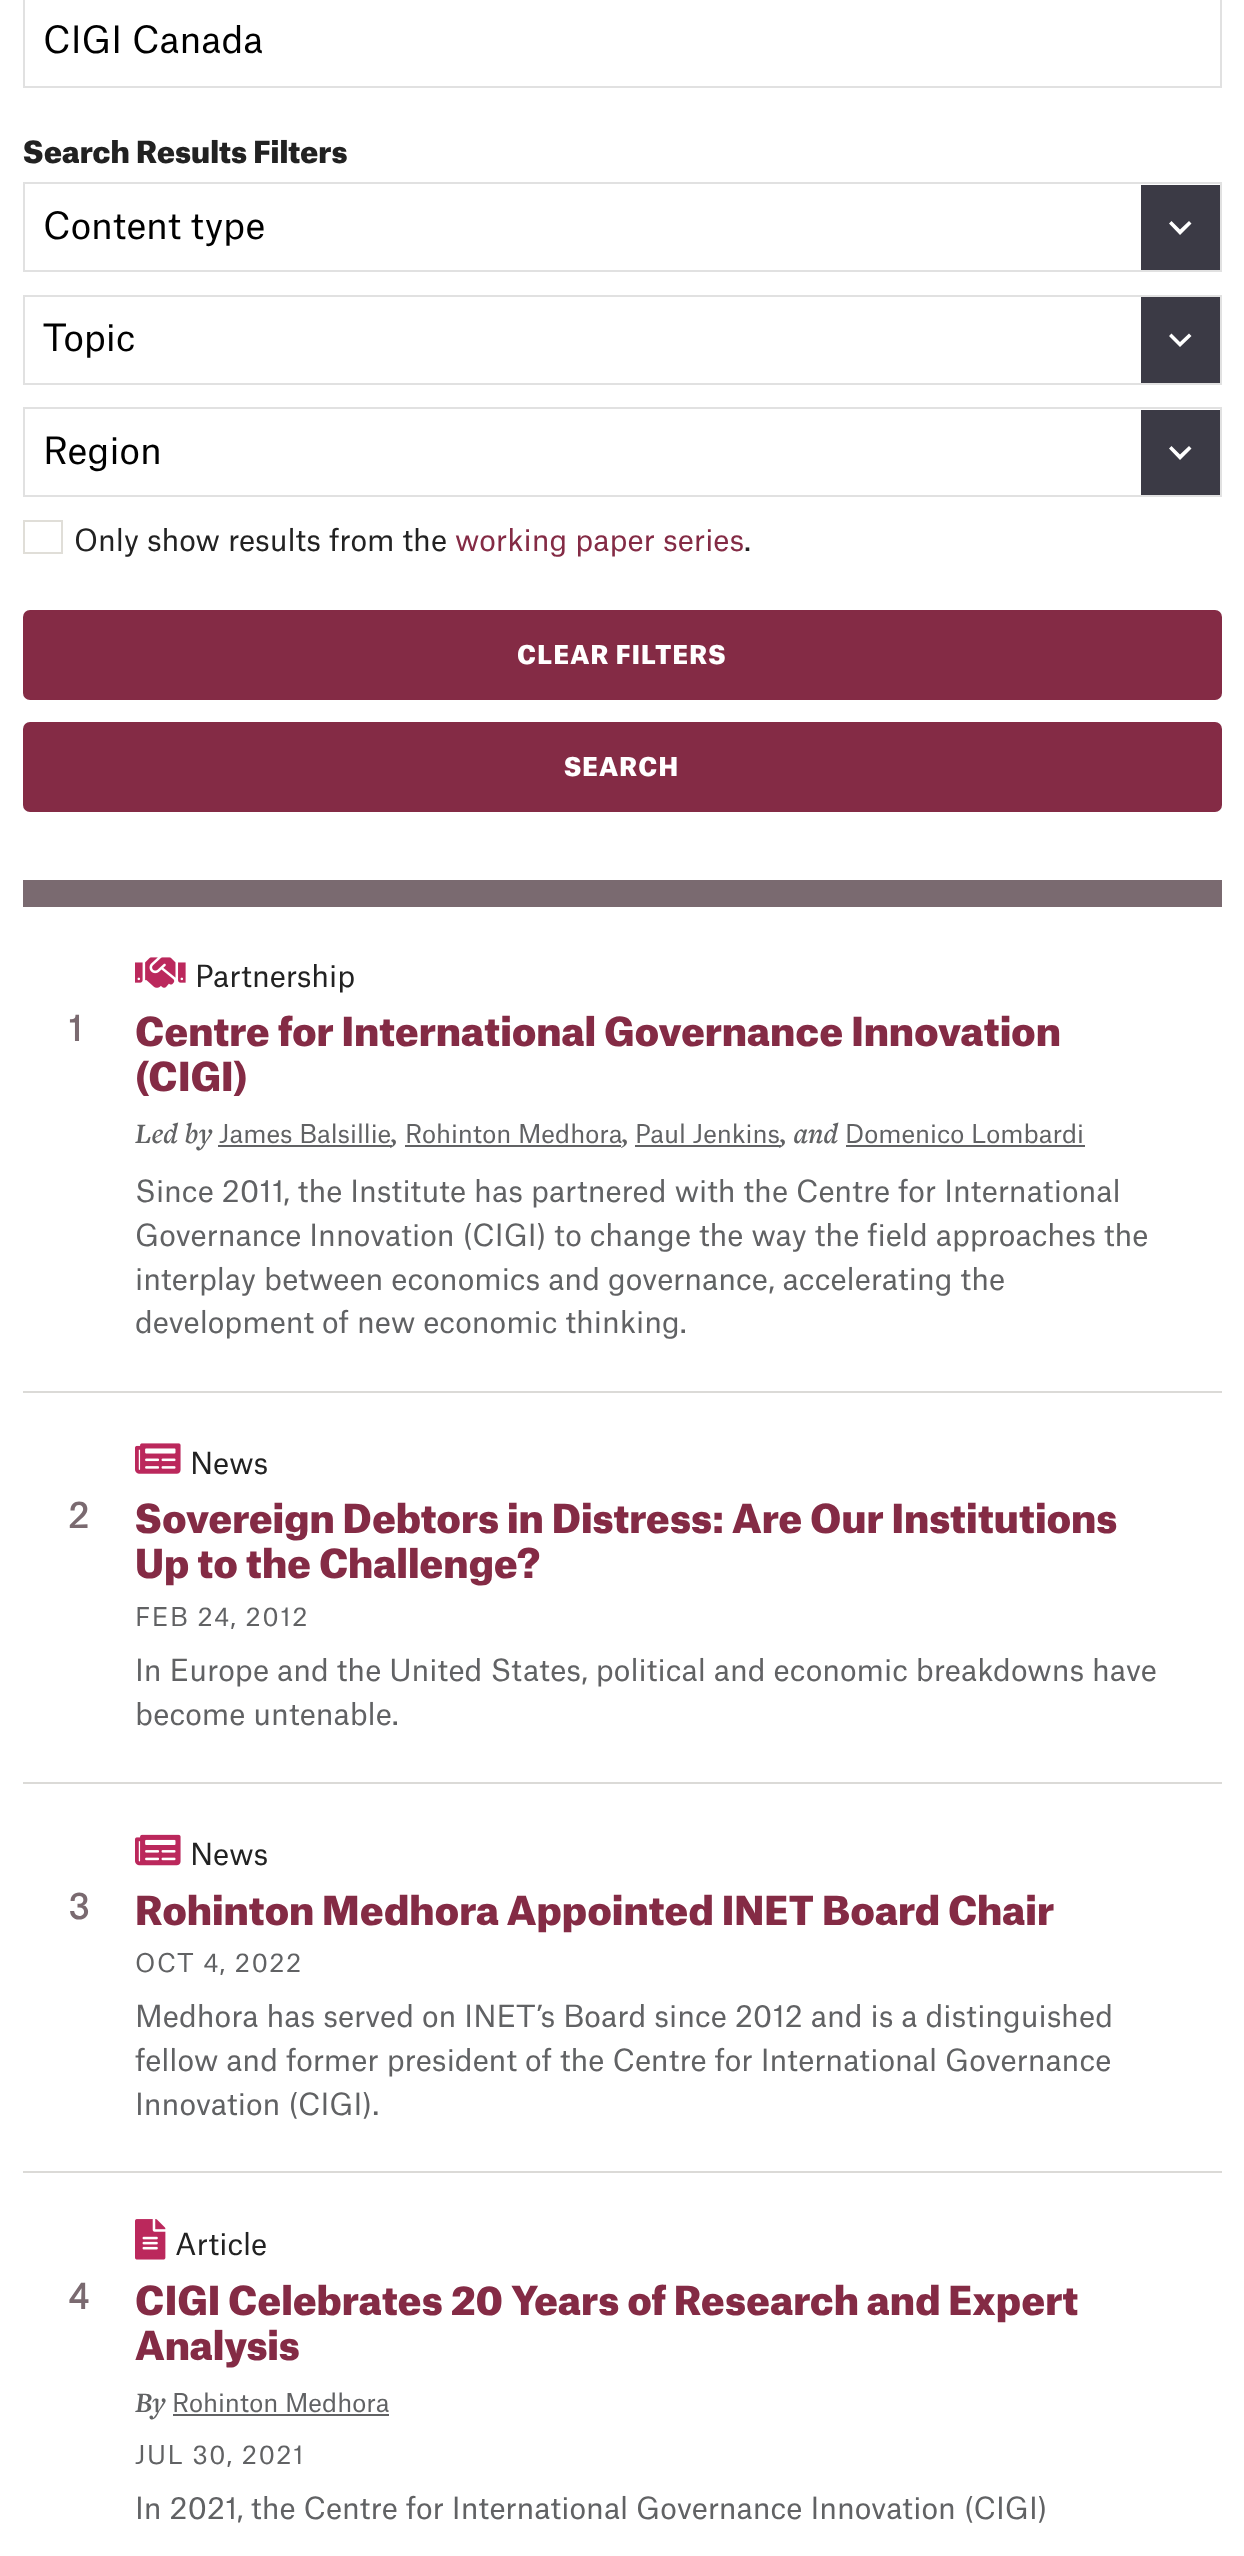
async function draw(canvas) {
  canvas.width = 1244
  canvas.height = 2556
  const ctx = canvas.getContext('2d')
  ctx.miterLimit = 4
  ctx.fontKerning = 'normal'
  async function loadImage(src) {
    const img = new Image()
    img.src = src
    await img.decode()
    return img
  }

  ctx.fillStyle = '#fff'
  ctx.fillRect(0, 0, 1244, 2556)
  ctx.strokeStyle = '#e1e1e1'
  ctx.lineWidth = 2
  ctx.strokeRect(24, -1, 1197, 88)
  ctx.save()
  ctx.beginPath()
  ctx.rect(43, 25, 1159, 36)
  ctx.clip()
  ctx.font = '36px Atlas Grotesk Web'
  ctx.fillStyle = '#000'
  ctx.fillText('CIGI Canada', 43, 53)
  ctx.restore()
  ctx.font = '900 29.25px Atlas Grotesk Web'
  ctx.fillStyle = '#222'
  ctx.fillText('Search Results Filters', 23, 163)
  ctx.fillStyle = '#3b3a45'
  ctx.fillRect(1141, 185, 79, 85)
  ctx.fillStyle = '#fff'
  ctx.beginPath()
  ctx.moveTo(1189, 221)
  ctx.lineTo(1180, 229.5)
  ctx.lineTo(1171.5, 221)
  ctx.lineTo(1169, 223.5)
  ctx.lineTo(1180, 235)
  ctx.lineTo(1191.5, 223.5)
  ctx.closePath()
  ctx.fill()
  ctx.strokeRect(24, 183, 1197, 88)
  ctx.font = '36px Atlas Grotesk Web'
  ctx.fillStyle = '#000'
  ctx.fillText('Content type', 43, 239)
  ctx.fillStyle = '#3b3a45'
  ctx.fillRect(1141, 297, 79, 86)
  ctx.fillStyle = '#fff'
  ctx.beginPath()
  ctx.moveTo(1189, 333.5)
  ctx.lineTo(1180, 342)
  ctx.lineTo(1171.5, 333.5)
  ctx.lineTo(1169, 336)
  ctx.lineTo(1180, 347)
  ctx.lineTo(1191.5, 336)
  ctx.closePath()
  ctx.fill()
  ctx.strokeRect(24, 296, 1197, 88)
  ctx.fillStyle = '#000'
  ctx.fillText('Topic', 43, 351)
  ctx.fillStyle = '#3b3a45'
  ctx.fillRect(1141, 410, 79, 85)
  ctx.fillStyle = '#fff'
  ctx.beginPath()
  ctx.moveTo(1189, 446)
  ctx.lineTo(1180, 454.5)
  ctx.lineTo(1171.5, 446)
  ctx.lineTo(1169, 448.5)
  ctx.lineTo(1180, 460)
  ctx.lineTo(1191.5, 448.5)
  ctx.closePath()
  ctx.fill()
  ctx.strokeRect(24, 408, 1197, 88)
  ctx.fillStyle = '#000'
  ctx.fillText('Region', 43, 464)
  ctx.strokeStyle = '#e0ded8'
  ctx.strokeRect(24, 521, 38, 32)
  ctx.font = '29.25px Atlas Grotesk Web'
  ctx.fillStyle = '#222'
  ctx.fillText('Only show results from the', 74, 551)
  ctx.fillStyle = '#842b45'
  ctx.fillText('working paper series', 455, 551)
  ctx.fillStyle = '#222'
  ctx.fillText('.', 744, 551)
  ctx.fillStyle = '#842b45'
  ctx.beginPath()
  ctx.roundRect(23, 610, 1199, 90, 7)
  ctx.fill()
  ctx.letterSpacing = '1.1px'
  ctx.font = '900 24.75px Atlas Grotesk Web'
  ctx.fillStyle = '#fff'
  ctx.fillText('CLEAR FILTERS', 517, 664)
  ctx.fillStyle = '#842b45'
  ctx.beginPath()
  ctx.roundRect(23, 722, 1199, 90, 7)
  ctx.fill()
  ctx.fillStyle = '#fff'
  ctx.fillText('SEARCH', 564, 776)
  ctx.fillStyle = '#7a6a70'
  ctx.fillRect(23, 880, 1199, 27)
  ctx.fillStyle = '#dbdad7'
  ctx.fillRect(23, 1391, 1199, 2)
  ctx.drawImage(await loadImage('image0.png'), 135, 957, 51, 31)
  ctx.letterSpacing = '0px'
  ctx.font = '29.25px Atlas Grotesk Web'
  ctx.fillStyle = '#222'
  ctx.fillText('Partnership', 195, 987)
  ctx.font = 'bold 34px Atlas Grotesk Web'
  ctx.fillStyle = '#7a6a70'
  ctx.fillText('1', 68, 1041)
  ctx.font = '900 38.25px Atlas Grotesk Web'
  ctx.fillStyle = '#842b45'
  ctx.fillText('Centre for International Governance Innovation', 135, 1046)
  ctx.fillText('(CIGI)', 135, 1091)
  ctx.font = 'italic 600 29.25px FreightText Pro'
  ctx.fillStyle = '#616264'
  ctx.fillText('Led by', 135, 1143)
  ctx.font = '24.75px Atlas Grotesk Web'
  ctx.fillText('James Balsillie', 219, 1143)
  ctx.fillRect(218, 1145, 174, 2)
  ctx.font = 'italic 600 29.25px FreightText Pro'
  ctx.fillText(',', 391, 1143)
  ctx.font = '24.75px Atlas Grotesk Web'
  ctx.fillText('Rohinton Medhora', 405, 1143)
  ctx.fillRect(405, 1145, 216, 2)
  ctx.font = 'italic 600 29.25px FreightText Pro'
  ctx.fillText(',', 622, 1143)
  ctx.font = '24.75px Atlas Grotesk Web'
  ctx.fillText('Paul Jenkins', 635, 1143)
  ctx.fillRect(635, 1145, 146, 2)
  ctx.font = 'italic 600 29.25px FreightText Pro'
  ctx.fillText(', and', 780, 1143)
  ctx.font = '24.75px Atlas Grotesk Web'
  ctx.fillText('Domenico Lombardi', 845, 1143)
  ctx.fillRect(846, 1145, 239, 2)
  ctx.font = '29.25px Atlas Grotesk Web'
  ctx.fillText('Since 2011, the Institute has partnered with the Centre for International', 135, 1202)
  ctx.fillText('Governance Innovation (CIGI) to change the way the field approaches the', 135, 1246)
  ctx.fillText('interplay between economics and governance, accelerating the', 135, 1290)
  ctx.fillText('development of new economic thinking.', 135, 1333)
  ctx.fillStyle = '#dbdad7'
  ctx.fillRect(23, 1782, 1199, 2)
  ctx.drawImage(await loadImage('image1.png'), 135, 1443, 46, 31)
  ctx.fillStyle = '#222'
  ctx.fillText('News', 190, 1474)
  ctx.font = 'bold 34px Atlas Grotesk Web'
  ctx.fillStyle = '#7a6a70'
  ctx.fillText('2', 68, 1528)
  ctx.font = '900 38.25px Atlas Grotesk Web'
  ctx.fillStyle = '#842b45'
  ctx.fillText('Sovereign Debtors in Distress: Are Our Institutions', 135, 1533)
  ctx.fillText('Up to the Challenge?', 135, 1578)
  ctx.letterSpacing = '1.5px'
  ctx.font = '24.75px Atlas Grotesk Web'
  ctx.fillStyle = '#616264'
  ctx.fillText('FEB 24, 2012', 135, 1626)
  ctx.letterSpacing = '0px'
  ctx.font = '29.25px Atlas Grotesk Web'
  ctx.fillText('In Europe and the United States, political and economic breakdowns have', 135, 1681)
  ctx.fillText('become untenable.', 135, 1725)
  ctx.fillStyle = '#dbdad7'
  ctx.fillRect(23, 2171, 1199, 2)
  ctx.drawImage(await loadImage('image2.png'), 135, 1834, 46, 32)
  ctx.fillStyle = '#222'
  ctx.fillText('News', 190, 1865)
  ctx.font = 'bold 34px Atlas Grotesk Web'
  ctx.fillStyle = '#7a6a70'
  ctx.fillText('3', 68, 1919)
  ctx.font = '900 38.25px Atlas Grotesk Web'
  ctx.fillStyle = '#842b45'
  ctx.fillText('Rohinton Medhora Appointed INET Board Chair', 135, 1925)
  ctx.letterSpacing = '1.5px'
  ctx.font = '24.75px Atlas Grotesk Web'
  ctx.fillStyle = '#616264'
  ctx.fillText('OCT 4, 2022', 135, 1972)
  ctx.letterSpacing = '0px'
  ctx.font = '29.25px Atlas Grotesk Web'
  ctx.fillText('Medhora has served on INET’s Board since 2012 and is a distinguished', 135, 2027)
  ctx.fillText('fellow and former president of the Centre for International Governance', 135, 2071)
  ctx.fillText('Innovation (CIGI).', 135, 2115)
  ctx.drawImage(await loadImage('image3.png'), 135, 2219, 31, 41)
  ctx.fillStyle = '#222'
  ctx.fillText('Article', 175, 2255)
  ctx.font = 'bold 34px Atlas Grotesk Web'
  ctx.fillStyle = '#7a6a70'
  ctx.fillText('4', 68, 2309)
  ctx.font = '900 38.25px Atlas Grotesk Web'
  ctx.fillStyle = '#842b45'
  ctx.fillText('CIGI Celebrates 20 Years of Research and Expert', 135, 2315)
  ctx.fillText('Analysis', 135, 2360)
  ctx.font = 'italic 600 29.25px FreightText Pro'
  ctx.fillStyle = '#616264'
  ctx.fillText('By', 135, 2412)
  ctx.font = '24.75px Atlas Grotesk Web'
  ctx.fillText('Rohinton Medhora', 172, 2412)
  ctx.fillRect(173, 2414, 216, 2)
  ctx.letterSpacing = '1.5px'
  ctx.fillText('JUL 30, 2021', 135, 2464)
  ctx.letterSpacing = '0px'
  ctx.font = '29.25px Atlas Grotesk Web'
  ctx.fillText('In 2021, the Centre for International Governance Innovation (CIGI)', 135, 2519)
}

draw(document.querySelector('canvas'))
